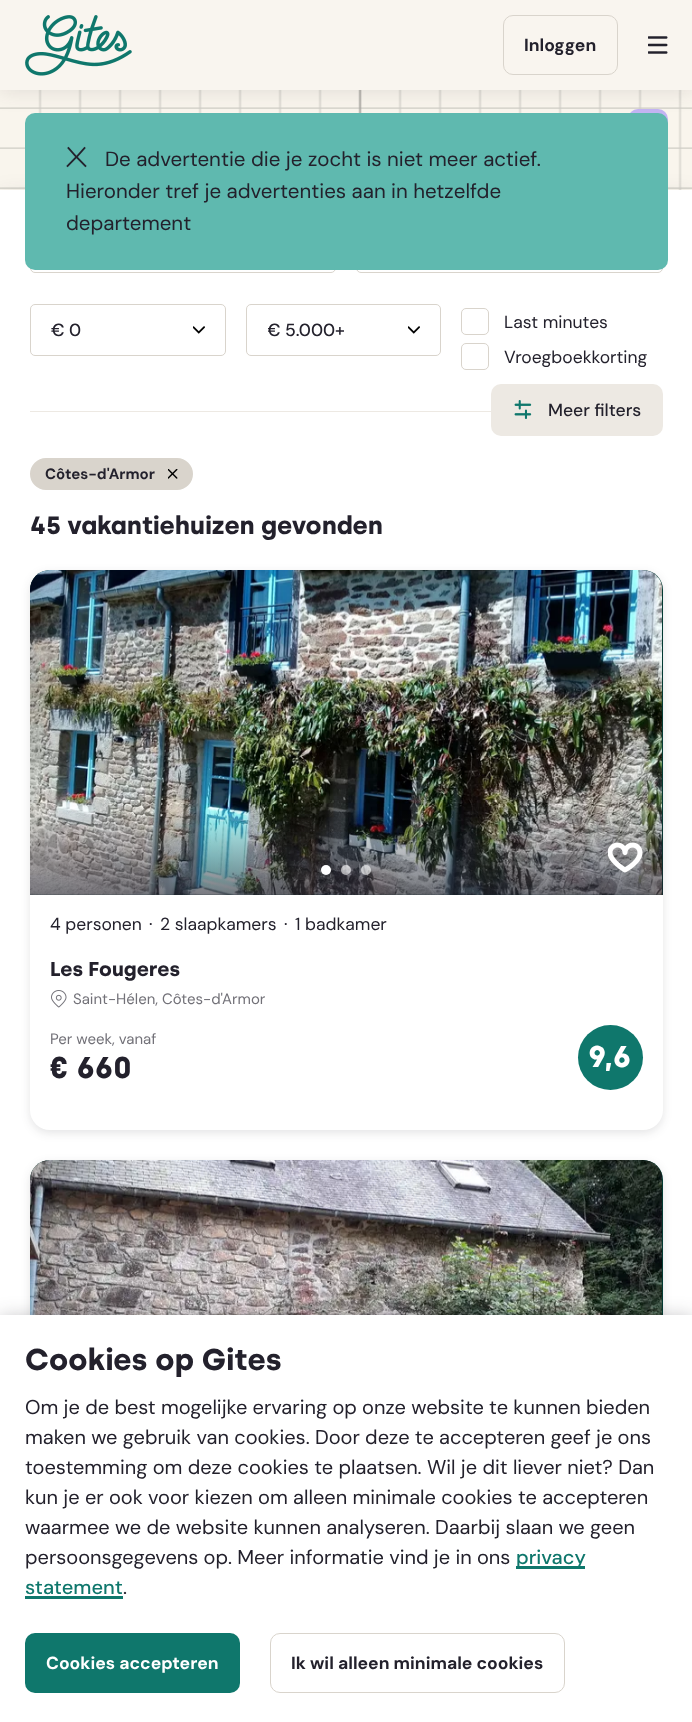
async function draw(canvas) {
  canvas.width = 692
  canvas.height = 1722
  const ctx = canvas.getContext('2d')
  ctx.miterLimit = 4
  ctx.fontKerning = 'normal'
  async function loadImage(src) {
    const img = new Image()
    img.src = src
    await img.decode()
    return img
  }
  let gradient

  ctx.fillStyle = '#fff'
  ctx.fillRect(0, 0, 692, 1722)
  ctx.drawImage(await loadImage('image3.png'), 0, 90, 692, 100)
  ctx.fillStyle = '#c3b4f3'
  ctx.beginPath()
  ctx.roundRect(628, 109, 40, 40, 10)
  ctx.fill()
  ctx.fillStyle = '#23212c1a'
  ctx.filter = 'blur(10px)'
  ctx.beginPath()
  ctx.rect(0, 3, 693, 90)
  ctx.fill()
  ctx.filter = 'none'
  ctx.fillStyle = '#f9f5ef'
  ctx.fillRect(0, 0, 692, 90)
  ctx.drawImage(await loadImage('image0.png'), 25, 15, 107, 61)
  ctx.beginPath()
  ctx.roundRect(503.5, 15.5, 114, 59, 9.5)
  ctx.strokeStyle = '#d9d4cc'
  ctx.stroke()
  ctx.font = 'bold 17.5px DM Sans'
  ctx.fillStyle = '#23212c'
  ctx.fillText('Inloggen', 524, 51)
  ctx.drawImage(await loadImage('image1.png'), 648, 36, 20, 18)
  ctx.fillStyle = '#23212c1a'
  ctx.filter = 'blur(10px)'
  ctx.beginPath()
  ctx.rect(0, 193, 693, 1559)
  ctx.fill()
  ctx.filter = 'none'
  ctx.fillStyle = '#fff'
  ctx.fillRect(0, 190, 692, 1125)
  ctx.beginPath()
  ctx.roundRect(30.5, 220.5, 305, 52, 4.5)
  ctx.stroke()
  ctx.beginPath()
  ctx.roundRect(356.5, 220.5, 306, 52, 4.5)
  ctx.stroke()
  ctx.fillStyle = '#5fb9af'
  ctx.beginPath()
  ctx.roundRect(25, 113, 643, 157, 10)
  ctx.fill()
  ctx.drawImage(await loadImage('image2.png'), 66, 146, 21, 22)
  ctx.font = '20.5px DM Sans'
  ctx.fillStyle = '#23212c'
  ctx.fillText('De advertentie die je zocht is niet meer actief.', 105, 166)
  ctx.fillText('Hieronder tref je advertenties aan in hetzelfde', 66, 198)
  ctx.fillText('departement', 66, 230)
  ctx.beginPath()
  ctx.roundRect(30.5, 304.5, 195, 51, 4.5)
  ctx.stroke()
  ctx.font = '500 17.5px DM Sans'
  ctx.fillText('€ 0', 51, 336)
  ctx.drawImage(await loadImage('image4.png'), 193, 326, 12, 8)
  ctx.beginPath()
  ctx.roundRect(246.5, 304.5, 194, 51, 4.5)
  ctx.stroke()
  ctx.save()
  ctx.beginPath()
  ctx.rect(268, 316, 130, 28)
  ctx.clip()
  ctx.fillText('€ 5.000+', 267, 336)
  ctx.restore()
  ctx.drawImage(await loadImage('image4.png'), 408, 326, 12, 8)
  ctx.beginPath()
  ctx.roundRect(461.5, 308.5, 27, 26, 4.5)
  ctx.stroke()
  ctx.font = '17.5px DM Sans'
  ctx.fillText('Last minutes', 504, 328)
  ctx.beginPath()
  ctx.roundRect(461.5, 343.5, 27, 26, 4.5)
  ctx.stroke()
  ctx.fillText('Vroegboekkorting', 504, 363)
  ctx.fillStyle = '#ede9e3'
  ctx.beginPath()
  ctx.roundRect(491, 384, 172, 52, 10)
  ctx.fill()
  ctx.fillRect(30, 411, 461, 1)
  ctx.drawImage(await loadImage('image5.png'), 514, 400, 18, 19)
  ctx.font = '500 17.5px DM Sans'
  ctx.fillStyle = '#23212c'
  ctx.fillText('Meer filters', 548, 416)
  ctx.fillStyle = '#d9d4cc'
  ctx.beginPath()
  ctx.roundRect(31.5, 459.5, 160, 29, 14.5)
  ctx.fill()
  ctx.lineWidth = 3
  ctx.stroke()
  ctx.font = 'bold 15px DM Sans'
  ctx.fillStyle = '#23212c'
  ctx.fillText('Côtes-d\'Armor', 45, 479)
  ctx.drawImage(await loadImage('image6.png'), 168, 469, 10, 10)
  ctx.font = 'bold 25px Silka'
  ctx.fillText('45 vakantiehuizen gevonden', 30, 534)
  ctx.fillStyle = '#23212c1f'
  ctx.filter = 'blur(5px)'
  ctx.beginPath()
  ctx.roundRect(30, 573, 633, 560, 20)
  ctx.fill()
  ctx.filter = 'none'
  ctx.fillStyle = '#fff'
  ctx.beginPath()
  ctx.roundRect(30, 570, 633, 560, 20)
  ctx.fill()
  ctx.fillStyle = '#033a33'
  ctx.beginPath()
  ctx.roundRect(30, 570, 633, 325, [20, 20, 0, 0])
  ctx.fill()
  ctx.drawImage(await loadImage('image8.png'), 30, 570, 632, 325)
  gradient = ctx.createLinearGradient(346, 895, 346, 798)
  gradient.addColorStop(0, '#23212c99')
  gradient.addColorStop(0.9, '#23212c00')
  ctx.fillStyle = gradient
  ctx.fillRect(30, 811, 633, 84)
  ctx.drawImage(await loadImage('image7.png'), 608, 842, 35, 31)
  ctx.fillStyle = '#fff'
  ctx.beginPath()
  ctx.arc(326, 870, 5, 0, 2 * Math.PI)
  ctx.fill()
  ctx.fillStyle = '#ffffff99'
  ctx.beginPath()
  ctx.arc(346, 870, 5, 0, 2 * Math.PI)
  ctx.fill()
  ctx.beginPath()
  ctx.arc(366, 870, 5, 0, 2 * Math.PI)
  ctx.fill()
  ctx.font = '17.5px DM Sans'
  ctx.fillStyle = '#23212c'
  ctx.fillText('4 personen', 50, 930)
  ctx.fillText('·', 149, 930)
  ctx.fillText('2 slaapkamers', 160, 930)
  ctx.fillText('·', 284, 930)
  ctx.fillText('1 badkamer', 295, 930)
  ctx.font = 'bold 20px Silka'
  ctx.fillText('Les Fougeres', 50, 976)
  ctx.drawImage(await loadImage('image9.png'), 51, 990, 16, 18)
  ctx.font = '15px DM Sans'
  ctx.fillStyle = '#727178'
  ctx.fillText('Saint-Hélen, Côtes-d\'Armor', 73, 1004)
  ctx.fillText('Per week, vanaf', 50, 1044)
  ctx.font = 'bold 30px Silka'
  ctx.fillStyle = '#23212c'
  ctx.fillText('€ 660', 50, 1078)
  ctx.fillStyle = '#0f776c'
  ctx.beginPath()
  ctx.arc(610.5, 1057.5, 32.5, 0, 2 * Math.PI)
  ctx.fill()
  ctx.fillStyle = '#fff'
  ctx.fillText('9,6', 588, 1067)
  ctx.fillStyle = '#23212c1f'
  ctx.filter = 'blur(5px)'
  ctx.beginPath()
  ctx.roundRect(30, 1163, 633, 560, 20)
  ctx.fill()
  ctx.filter = 'none'
  ctx.fillStyle = '#033a33'
  ctx.beginPath()
  ctx.roundRect(30, 1160, 633, 325, [20, 20, 0, 0])
  ctx.fill()
  ctx.drawImage(await loadImage('image10.png'), 30, 1160, 632, 155)
  ctx.fillStyle = '#23212c4d'
  ctx.filter = 'blur(10px)'
  ctx.beginPath()
  ctx.rect(0, 1318, 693, 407)
  ctx.fill()
  ctx.filter = 'none'
  ctx.fillStyle = '#fff'
  ctx.fillRect(0, 1315, 692, 407)
  ctx.fillStyle = '#23212c'
  ctx.fillText('Cookies op Gites', 25, 1370)
  ctx.font = '20px DM Sans'
  ctx.fillText('Om je de best mogelijke ervaring op onze website te kunnen bieden', 25, 1414)
  ctx.fillText('maken we gebruik van cookies. Door deze te accepteren geef je ons', 25, 1444)
  ctx.fillText('toestemming om deze cookies te plaatsen. Wil je dit liever niet? Dan', 25, 1474)
  ctx.fillText('kun je er ook voor kiezen om alleen minimale cookies te accepteren', 25, 1504)
  ctx.fillText('waarmee we de website kunnen analyseren. Daarbij slaan we geen', 25, 1534)
  ctx.fillText('persoonsgegevens op. Meer informatie vind je in ons', 25, 1564)
  ctx.fillStyle = '#0f776c'
  ctx.fillRect(516, 1566, 69, 3)
  ctx.font = '500 20px DM Sans'
  ctx.fillText('privacy', 516, 1564)
  ctx.fillText('statement', 25, 1594)
  ctx.fillRect(25, 1596, 98, 3)
  ctx.font = '20px DM Sans'
  ctx.fillStyle = '#23212c'
  ctx.fillText('.', 123, 1594)
  ctx.fillStyle = '#0f776c'
  ctx.beginPath()
  ctx.roundRect(25, 1633, 215, 60, 10)
  ctx.fill()
  ctx.font = 'bold 17.5px DM Sans'
  ctx.fillStyle = '#fff'
  ctx.fillText('Cookies accepteren', 46, 1669)
  ctx.beginPath()
  ctx.roundRect(270.5, 1633.5, 294, 59, 9.5)
  ctx.lineWidth = 1
  ctx.stroke()
  ctx.fillStyle = '#23212c'
  ctx.fillText('Ik wil alleen minimale cookies', 291, 1669)
}

draw(document.querySelector('canvas'))
